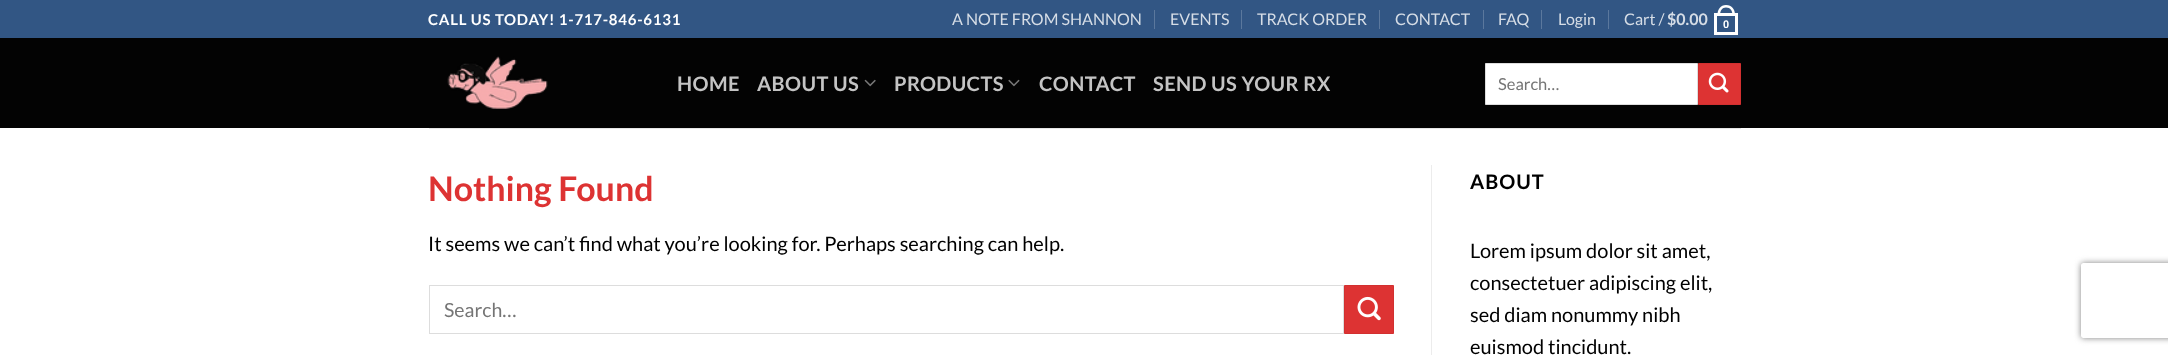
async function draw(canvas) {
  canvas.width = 2168
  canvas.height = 355
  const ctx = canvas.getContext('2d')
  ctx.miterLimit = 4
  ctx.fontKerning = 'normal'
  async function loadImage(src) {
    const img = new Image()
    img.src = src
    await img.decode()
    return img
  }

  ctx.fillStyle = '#fff'
  ctx.fillRect(0, 0, 2168, 355)
  ctx.fillStyle = '#325684'
  ctx.fillRect(0, 0, 2168, 38)
  ctx.letterSpacing = '0.75px'
  ctx.font = 'bold 15px Lato'
  ctx.fillStyle = '#fff'
  ctx.fillText('CALL US TODAY! 1-717-846-6131', 428, 25)
  ctx.letterSpacing = '0px'
  ctx.font = '16px Lato'
  ctx.fillStyle = '#d6dde6'
  ctx.fillText('A NOTE FROM SHANNON', 952, 25)
  ctx.fillStyle = '#5b789d'
  ctx.fillRect(1154, 10, 1, 19)
  ctx.fillStyle = '#d6dde6'
  ctx.fillText('EVENTS', 1170, 25)
  ctx.fillStyle = '#5b789d'
  ctx.fillRect(1241, 10, 1, 19)
  ctx.fillStyle = '#d6dde6'
  ctx.fillText('TRACK ORDER', 1257, 25)
  ctx.fillStyle = '#5b789d'
  ctx.fillRect(1379, 10, 1, 19)
  ctx.fillStyle = '#d6dde6'
  ctx.fillText('CONTACT', 1395, 25)
  ctx.fillStyle = '#5b789d'
  ctx.fillRect(1483, 10, 1, 19)
  ctx.fillStyle = '#d6dde6'
  ctx.fillText('FAQ', 1498, 25)
  ctx.fillStyle = '#5b789d'
  ctx.fillRect(1541, 10, 1, 19)
  ctx.fillStyle = '#d6dde6'
  ctx.fillText('Login', 1558, 25)
  ctx.fillStyle = '#5b789d'
  ctx.fillRect(1608, 10, 1, 19)
  ctx.fillStyle = '#d6dde6'
  ctx.fillText('Cart /', 1624, 25)
  ctx.font = 'bold 16px Lato'
  ctx.fillText('$0.00', 1667, 25)
  ctx.strokeStyle = '#fff'
  ctx.lineWidth = 3
  ctx.strokeRect(1715.5, 14.5, 21, 19)
  ctx.fillStyle = '#fff'
  ctx.beginPath()
  ctx.moveTo(1726, 5)
  ctx.bezierCurveTo(1732, 5, 1735, 9.5, 1735, 15)
  ctx.lineTo(1717.5, 15)
  ctx.bezierCurveTo(1717.5, 9.5, 1720.5, 5, 1726, 5)
  ctx.closePath()
  ctx.moveTo(1726, 7.5)
  ctx.bezierCurveTo(1730.5, 7.5, 1732.5, 11, 1732.5, 15)
  ctx.lineTo(1720, 15)
  ctx.bezierCurveTo(1720, 11, 1722, 7.5, 1726, 7.5)
  ctx.closePath()
  ctx.fill('evenodd')
  ctx.font = 'bold 11px Liberation Sans'
  ctx.fillText('0', 1723, 28)
  ctx.fillStyle = '#030303'
  ctx.fillRect(0, 38, 2168, 90)
  ctx.drawImage(await loadImage('image0.png'), 447, 56, 101, 53)
  ctx.letterSpacing = '0.4px'
  ctx.font = 'bold 20px Lato'
  ctx.fillStyle = '#c4c4c4'
  ctx.fillText('HOME', 677, 91)
  ctx.fillText('ABOUT US', 757, 91)
  ctx.drawImage(await loadImage('image1.png'), 864, 79, 12, 8)
  ctx.fillText('PRODUCTS', 894, 91)
  ctx.drawImage(await loadImage('image2.png'), 1008, 79, 12, 8)
  ctx.fillText('CONTACT', 1039, 91)
  ctx.fillText('SEND US YOUR RX', 1153, 91)
  ctx.fillStyle = '#fff'
  ctx.beginPath()
  ctx.rect(1485.5, 63.5, 212, 41)
  ctx.fill()
  ctx.strokeStyle = '#ddd'
  ctx.lineWidth = 1
  ctx.stroke()
  ctx.letterSpacing = '0px'
  ctx.font = '16.5px Lato'
  ctx.fillStyle = '#757575'
  ctx.fillText('Search…', 1498, 90)
  ctx.fillStyle = '#d33'
  ctx.beginPath()
  ctx.rect(1698.5, 63.5, 42, 41)
  ctx.fill()
  ctx.strokeStyle = '#d23030'
  ctx.stroke()
  ctx.drawImage(await loadImage('image3.png'), 1708, 72, 21, 21)
  ctx.fillStyle = '#e6e6e6'
  ctx.fillRect(429, 128, 1312, 1)
  ctx.font = 'bold 34px Lato'
  ctx.fillStyle = '#d33'
  ctx.fillText('Nothing Found', 428, 201)
  ctx.font = '20px Lato'
  ctx.fillStyle = '#000'
  ctx.fillText('It seems we can’t find what you’re looking for. Perhaps searching can help.', 428, 251)
  ctx.strokeStyle = '#ddd'
  ctx.strokeRect(429.5, 285.5, 914, 48)
  ctx.font = '19.5px Lato'
  ctx.fillStyle = '#757575'
  ctx.fillText('Search…', 444, 317)
  ctx.fillStyle = '#d33'
  ctx.beginPath()
  ctx.rect(1344.5, 285.5, 49, 48)
  ctx.fill()
  ctx.strokeStyle = '#d23030'
  ctx.stroke()
  ctx.drawImage(await loadImage('image4.png'), 1357, 296, 24, 25)
  ctx.fillStyle = '#ececec'
  ctx.fillRect(1431, 165, 1, 190)
  ctx.letterSpacing = '1px'
  ctx.font = 'bold 20px Lato'
  ctx.fillStyle = '#000'
  ctx.fillText('ABOUT', 1470, 189)
  ctx.letterSpacing = '0px'
  ctx.font = '20px Lato'
  ctx.fillText('Lorem ipsum dolor sit amet,', 1470, 258)
  ctx.fillText('consectetuer adipiscing elit,', 1470, 290)
  ctx.fillText('sed diam nonummy nibh', 1470, 322)
  ctx.fillText('euismod tincidunt.', 1470, 354)
  ctx.save()
  ctx.beginPath()
  ctx.moveTo(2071, 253)
  ctx.lineTo(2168, 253)
  ctx.lineTo(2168, 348)
  ctx.lineTo(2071, 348)
  ctx.closePath()
  ctx.moveTo(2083.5, 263)
  ctx.lineTo(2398.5, 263)
  ctx.bezierCurveTo(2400, 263, 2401, 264, 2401, 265.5)
  ctx.lineTo(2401, 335.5)
  ctx.bezierCurveTo(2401, 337, 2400, 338, 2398.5, 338)
  ctx.lineTo(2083.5, 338)
  ctx.bezierCurveTo(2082, 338, 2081, 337, 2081, 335.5)
  ctx.lineTo(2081, 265.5)
  ctx.bezierCurveTo(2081, 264, 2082, 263, 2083.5, 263)
  ctx.closePath()
  ctx.clip('evenodd')
  ctx.fillStyle = '#808080'
  ctx.filter = 'blur(3px)'
  ctx.beginPath()
  ctx.roundRect(2081, 263, 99, 75, 2.5)
  ctx.fill()
  ctx.filter = 'none'
  ctx.restore()
}

draw(document.querySelector('canvas'))
